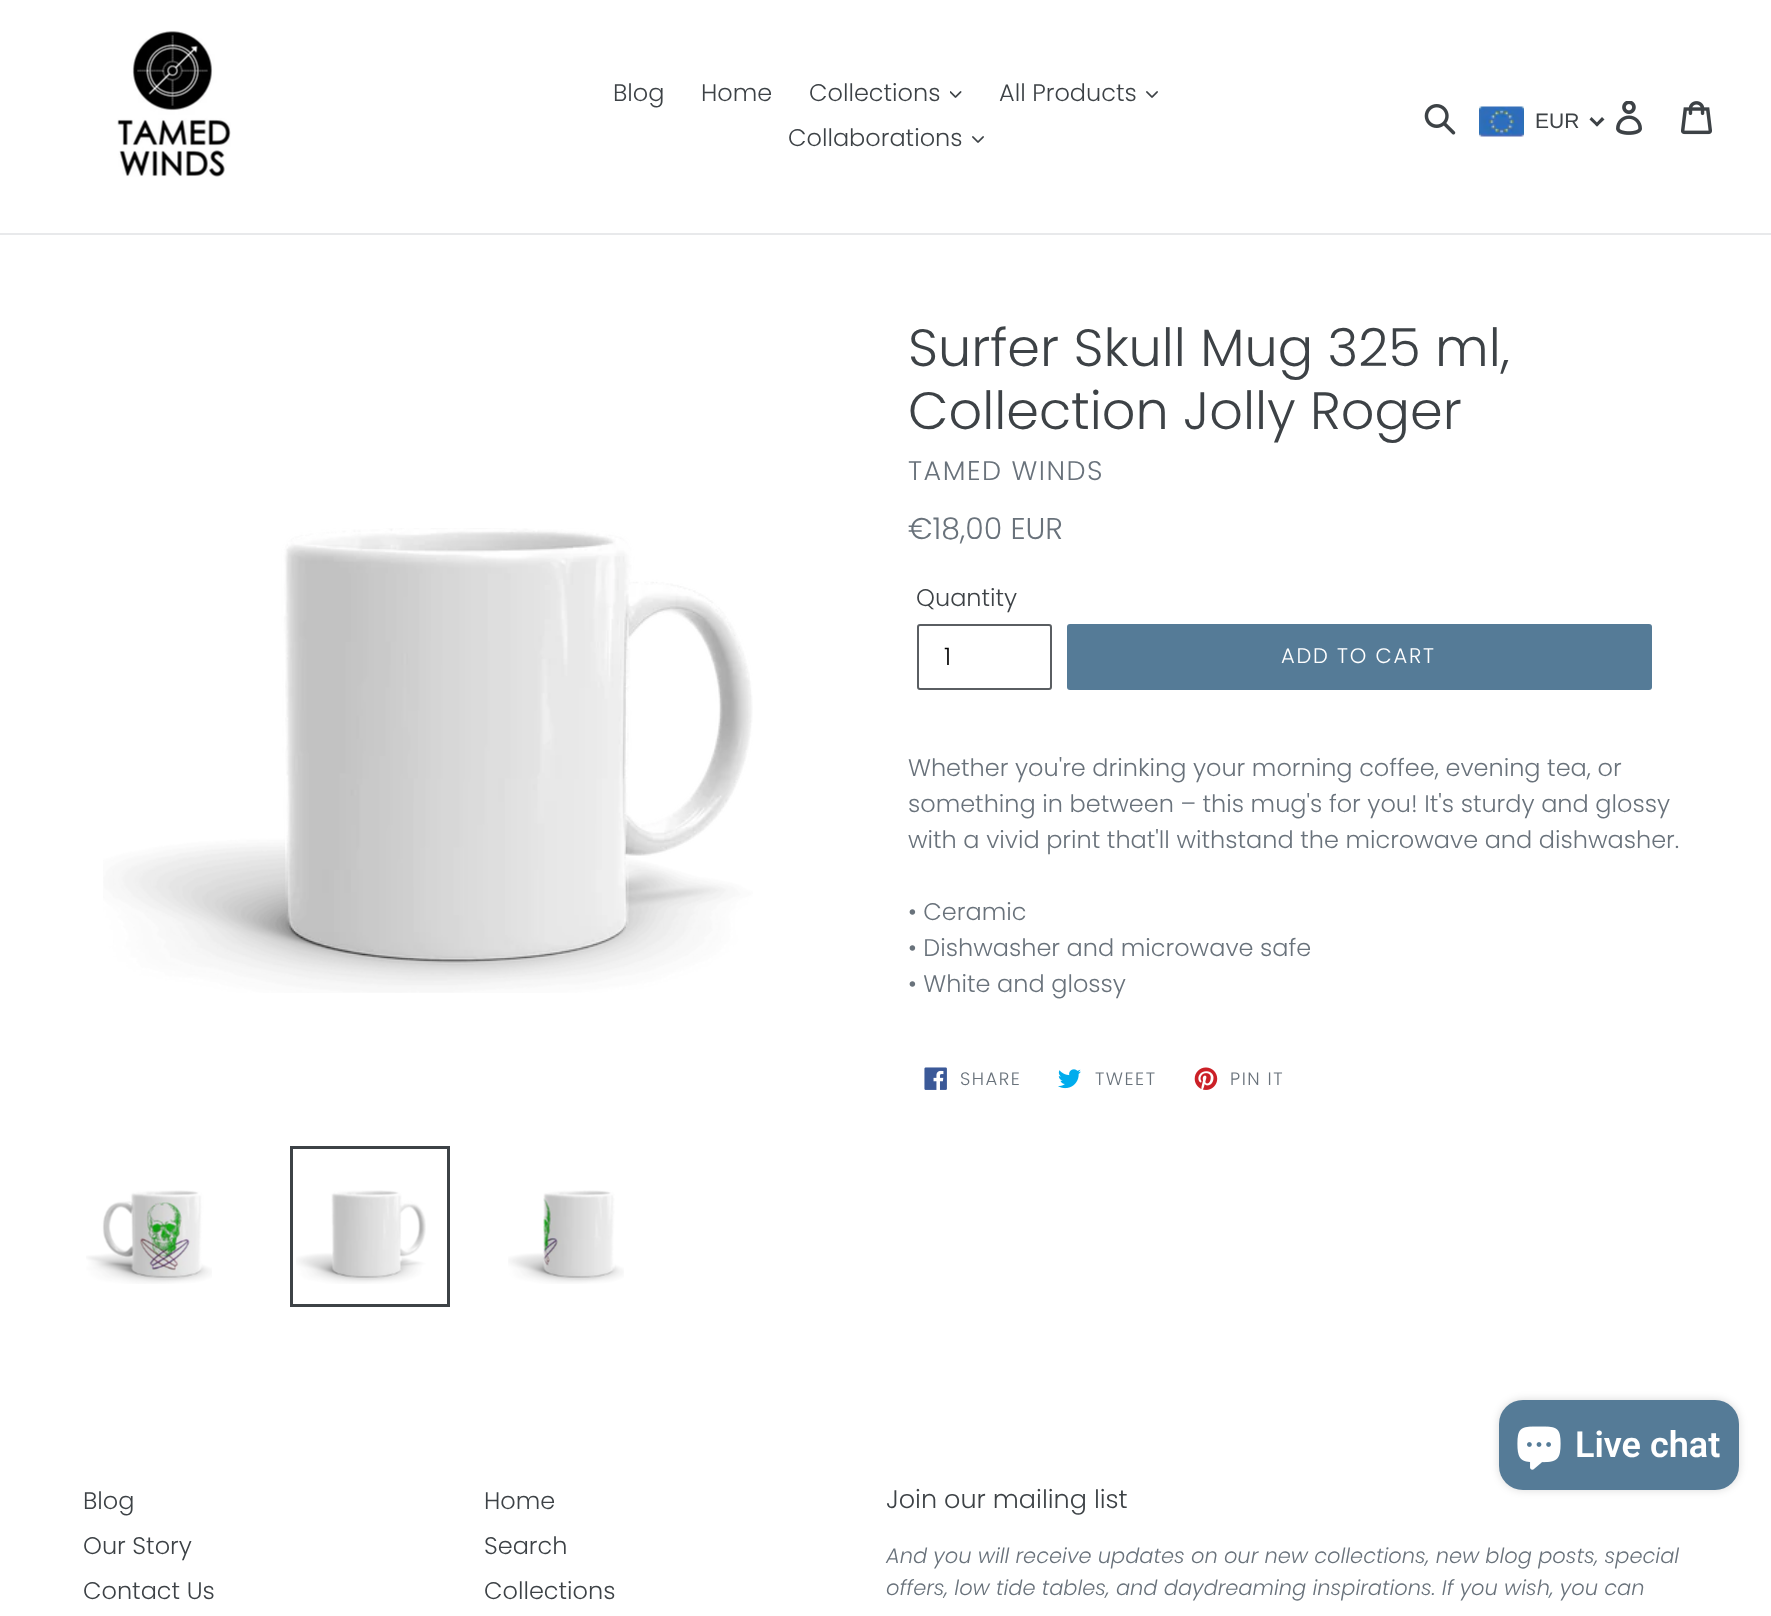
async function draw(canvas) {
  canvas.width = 1771
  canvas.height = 1616
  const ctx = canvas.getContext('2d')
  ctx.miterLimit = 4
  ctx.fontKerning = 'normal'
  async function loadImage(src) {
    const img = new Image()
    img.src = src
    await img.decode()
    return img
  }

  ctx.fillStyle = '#fff'
  ctx.fillRect(0, 0, 1771, 1616)
  ctx.fillStyle = '#e8e9eb'
  ctx.fillRect(0, 233, 1771, 2)
  ctx.drawImage(await loadImage('image0.png'), 117, 31, 114, 146)
  ctx.font = '300 24px Poppins'
  ctx.fillStyle = '#3d4246'
  ctx.fillText('Blog', 613, 101)
  ctx.fillText('Home', 701, 101)
  ctx.fillText('Collections', 809, 101)
  ctx.drawImage(await loadImage('image1.png'), 950, 91, 12, 7)
  ctx.fillText('All Products', 999, 101)
  ctx.drawImage(await loadImage('image2.png'), 1146, 91, 12, 7)
  ctx.fillText('Collaborations', 788, 146)
  ctx.drawImage(await loadImage('image2.png'), 972, 136, 12, 7)
  ctx.drawImage(await loadImage('image3.png'), 1424, 104, 32, 31)
  ctx.drawImage(await loadImage('image4.png'), 1479, 106, 45, 31)
  ctx.font = '21px Liberation Sans'
  ctx.fillText('EUR', 1535, 128)
  ctx.beginPath()
  ctx.moveTo(1602, 117)
  ctx.lineTo(1604.5, 119.5)
  ctx.lineTo(1597, 126.5)
  ctx.lineTo(1595, 124.5)
  ctx.closePath()
  ctx.fill()
  ctx.beginPath()
  ctx.moveTo(1591.5, 117)
  ctx.lineTo(1599, 124.5)
  ctx.lineTo(1597, 126.5)
  ctx.lineTo(1589.5, 119.5)
  ctx.closePath()
  ctx.fill()
  ctx.drawImage(await loadImage('image5.png'), 1616, 101, 26, 34)
  ctx.drawImage(await loadImage('image6.png'), 1681, 101, 31, 34)
  ctx.drawImage(await loadImage('image7.png'), 103, 528, 650, 465)
  ctx.drawImage(await loadImage('image8.png'), 86, 1190, 126, 94)
  ctx.strokeStyle = '#3d4246'
  ctx.lineWidth = 3
  ctx.strokeRect(291.5, 1147.5, 157, 158)
  ctx.drawImage(await loadImage('image9.png'), 296, 1190, 130, 94)
  ctx.drawImage(await loadImage('image10.png'), 508, 1190, 116, 94)
  ctx.font = '300 52.5px Poppins'
  ctx.fillText('Surfer Skull Mug 325 ml,', 908, 366)
  ctx.fillText('Collection Jolly Roger', 908, 429)
  ctx.letterSpacing = '1.5px'
  ctx.font = '300 27px Poppins'
  ctx.fillStyle = '#69727b'
  ctx.fillText('TAMED WINDS', 908, 480)
  ctx.letterSpacing = '0px'
  ctx.font = '300 30px Poppins'
  ctx.fillText('€18,00 EUR', 908, 539)
  ctx.font = '300 24px Poppins'
  ctx.fillStyle = '#3d4246'
  ctx.fillText('Quantity', 916, 606)
  ctx.beginPath()
  ctx.roundRect(918, 625, 133, 64, 2)
  ctx.strokeStyle = '#5a5e62'
  ctx.lineWidth = 2
  ctx.stroke()
  ctx.fillStyle = '#000'
  ctx.fillText('1', 944, 665)
  ctx.fillStyle = '#557b97'
  ctx.beginPath()
  ctx.roundRect(1067, 624, 585, 66, 3)
  ctx.fill()
  ctx.letterSpacing = '1.75px'
  ctx.font = '300 21px Poppins'
  ctx.fillStyle = '#fff'
  ctx.fillText('ADD TO CART', 1281, 663)
  ctx.letterSpacing = '0px'
  ctx.font = '300 24px Poppins'
  ctx.fillStyle = '#69727b'
  ctx.fillText('Whether you\'re drinking your morning coffee, evening tea, or', 908, 776)
  ctx.fillText('something in between – this mug\'s for you! It\'s sturdy and glossy', 908, 812)
  ctx.fillText('with a vivid print that\'ll withstand the microwave and dishwasher.', 908, 848)
  ctx.fillText('• Ceramic', 908, 920)
  ctx.fillText('• Dishwasher and microwave safe', 908, 956)
  ctx.fillText('• White and glossy', 908, 992)
  ctx.drawImage(await loadImage('image11.png'), 924, 1067, 23, 23)
  ctx.letterSpacing = '1.5px'
  ctx.font = '300 18px Poppins'
  ctx.fillText('SHARE', 960, 1085)
  ctx.drawImage(await loadImage('image12.png'), 1058, 1069, 23, 20)
  ctx.fillText('TWEET', 1095, 1085)
  ctx.drawImage(await loadImage('image13.png'), 1194, 1067, 24, 23)
  ctx.fillText('PIN IT', 1230, 1085)
  ctx.fillStyle = '#00000026'
  ctx.filter = 'blur(4px)'
  ctx.beginPath()
  ctx.roundRect(1499, 1400, 240, 90, 24)
  ctx.fill()
  ctx.filter = 'none'
  ctx.fillStyle = '#557b97'
  ctx.beginPath()
  ctx.roundRect(1499, 1400, 240, 90, 24)
  ctx.fill()
  ctx.drawImage(await loadImage('image14.png'), 1517, 1426, 44, 44)
  ctx.letterSpacing = '0px'
  ctx.font = '600 36px Roboto'
  ctx.fillStyle = '#fff'
  ctx.fillText('Live chat', 1575, 1457)
  ctx.font = '300 24px Poppins'
  ctx.fillStyle = '#3d4246'
  ctx.fillText('Blog', 83, 1509)
  ctx.fillText('Our Story', 83, 1554)
  ctx.fillText('Contact Us', 83, 1599)
  ctx.fillText('Home', 484, 1509)
  ctx.fillText('Search', 484, 1554)
  ctx.fillText('Collections', 484, 1599)
  ctx.font = '300 25.5px Poppins'
  ctx.fillText('Join our mailing list', 886, 1508)
  ctx.font = 'italic 300 21px Poppins'
  ctx.fillStyle = '#69727b'
  ctx.fillText('And you will receive updates on our new collections, new blog posts, special', 886, 1563)
  ctx.fillText('offers, low tide tables, and daydreaming inspirations. If you wish, you can', 886, 1595)
}

draw(document.querySelector('canvas'))
